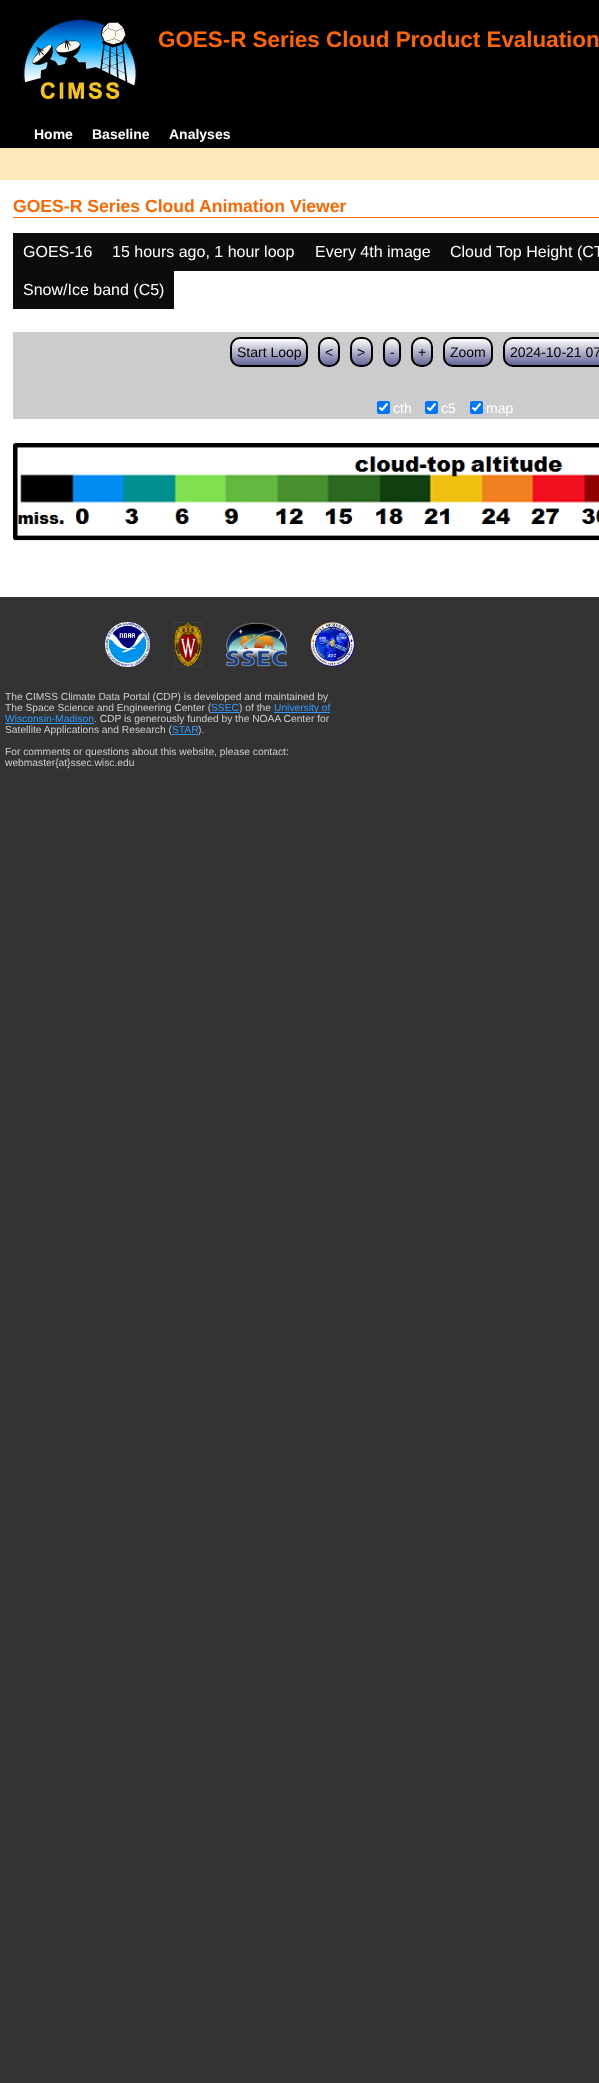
async function draw(canvas) {
  canvas.width = 599
  canvas.height = 2083
  const ctx = canvas.getContext('2d')
  ctx.miterLimit = 4
  ctx.fontKerning = 'normal'
  async function loadImage(src) {
    const img = new Image()
    img.src = src
    await img.decode()
    return img
  }
  let gradient

  ctx.fillStyle = '#333'
  ctx.fillRect(0, 0, 599, 2083)
  ctx.fillStyle = '#000'
  ctx.fillRect(0, 0, 599, 148)
  ctx.drawImage(await loadImage('image0.png'), 22, 19, 116, 80)
  ctx.font = 'bold 22.4px Liberation Sans'
  ctx.fillStyle = '#f60'
  ctx.fillText('GOES-R Series Cloud Product Evaluation', 158, 47)
  ctx.font = 'bold 14px Liberation Sans'
  ctx.fillStyle = '#fff'
  ctx.fillText('Home', 34, 139)
  ctx.fillText('Baseline', 92, 139)
  ctx.fillText('Analyses', 169, 139)
  ctx.fillStyle = '#ffe9bb'
  ctx.fillRect(0, 148, 599, 32)
  ctx.fillStyle = '#fff'
  ctx.fillRect(0, 180, 599, 417)
  ctx.fillStyle = '#f60'
  ctx.fillRect(13, 217, 586, 1)
  ctx.font = 'bold 17.6px Liberation Sans'
  ctx.fillText('GOES-R Series Cloud Animation Viewer', 13, 212)
  ctx.fillStyle = '#0c0c0c'
  ctx.fillRect(13, 233, 586, 38)
  ctx.font = '16px Liberation Sans'
  ctx.fillStyle = '#fff'
  ctx.fillText('GOES-16', 23, 257)
  ctx.fillText('15 hours ago, 1 hour loop', 112, 257)
  ctx.fillText('Every 4th image', 315, 257)
  ctx.fillText('Cloud Top Height (CT', 450, 257)
  ctx.fillStyle = '#0c0c0c'
  ctx.fillRect(13, 271, 161, 38)
  ctx.fillStyle = '#fff'
  ctx.fillText('Snow/Ice band (C5)', 23, 295)
  ctx.fillStyle = '#ccc'
  ctx.fillRect(13, 332, 586, 40)
  ctx.save()
  ctx.beginPath()
  ctx.roundRect(230, 337, 78, 30, 10)
  ctx.clip()
  gradient = ctx.createLinearGradient(269, 339, 269, 365)
  gradient.addColorStop(0, '#fff')
  gradient.addColorStop(1, '#669')
  ctx.fillStyle = gradient
  ctx.fillRect(230, 339, 78, 26)
  ctx.restore()
  ctx.beginPath()
  ctx.roundRect(231, 338, 76, 28, 9)
  ctx.strokeStyle = '#000'
  ctx.lineWidth = 2
  ctx.stroke()
  ctx.font = '14px Liberation Sans'
  ctx.fillStyle = '#000'
  ctx.fillText('Start Loop', 237, 357)
  ctx.save()
  ctx.beginPath()
  ctx.roundRect(318, 337, 22, 30, 10)
  ctx.clip()
  gradient = ctx.createLinearGradient(329, 339, 329, 365)
  gradient.addColorStop(0, '#fff')
  gradient.addColorStop(1, '#669')
  ctx.fillStyle = gradient
  ctx.fillRect(318, 339, 22, 26)
  ctx.restore()
  ctx.beginPath()
  ctx.roundRect(319, 338, 20, 28, 9)
  ctx.stroke()
  ctx.fillText('<', 325, 357)
  ctx.save()
  ctx.beginPath()
  ctx.roundRect(350, 337, 23, 30, 10)
  ctx.clip()
  gradient = ctx.createLinearGradient(362, 339, 362, 365)
  gradient.addColorStop(0, '#fff')
  gradient.addColorStop(1, '#669')
  ctx.fillStyle = gradient
  ctx.fillRect(350, 339, 23, 26)
  ctx.restore()
  ctx.beginPath()
  ctx.roundRect(351, 338, 21, 28, 9)
  ctx.stroke()
  ctx.fillText('>', 357, 357)
  ctx.save()
  ctx.beginPath()
  ctx.roundRect(383, 337, 18, 30, 9)
  ctx.clip()
  gradient = ctx.createLinearGradient(392, 339, 392, 365)
  gradient.addColorStop(0, '#fff')
  gradient.addColorStop(1, '#669')
  ctx.fillStyle = gradient
  ctx.fillRect(383, 339, 18, 26)
  ctx.restore()
  ctx.beginPath()
  ctx.roundRect(384, 338, 16, 28, 8)
  ctx.stroke()
  ctx.fillText('-', 390, 357)
  ctx.save()
  ctx.beginPath()
  ctx.roundRect(411, 337, 22, 30, 10)
  ctx.clip()
  gradient = ctx.createLinearGradient(422, 339, 422, 365)
  gradient.addColorStop(0, '#fff')
  gradient.addColorStop(1, '#669')
  ctx.fillStyle = gradient
  ctx.fillRect(411, 339, 22, 26)
  ctx.restore()
  ctx.beginPath()
  ctx.roundRect(412, 338, 20, 28, 9)
  ctx.stroke()
  ctx.fillText('+', 418, 357)
  ctx.save()
  ctx.beginPath()
  ctx.roundRect(443, 337, 50, 30, 10)
  ctx.clip()
  gradient = ctx.createLinearGradient(468, 339, 468, 365)
  gradient.addColorStop(0, '#fff')
  gradient.addColorStop(1, '#669')
  ctx.fillStyle = gradient
  ctx.fillRect(443, 339, 50, 26)
  ctx.restore()
  ctx.beginPath()
  ctx.roundRect(444, 338, 48, 28, 9)
  ctx.stroke()
  ctx.fillText('Zoom', 450, 357)
  ctx.save()
  ctx.beginPath()
  ctx.roundRect(503, 337, 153, 30, 10)
  ctx.clip()
  gradient = ctx.createLinearGradient(580, 339, 580, 365)
  gradient.addColorStop(0, '#fff')
  gradient.addColorStop(1, '#669')
  ctx.fillStyle = gradient
  ctx.fillRect(503, 339, 96, 26)
  ctx.restore()
  ctx.beginPath()
  ctx.roundRect(504, 338, 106, 28, 9)
  ctx.stroke()
  ctx.fillText('2024-10-21 07', 510, 357)
  ctx.fillStyle = '#ccc'
  ctx.fillRect(13, 372, 586, 47)
  ctx.fillStyle = '#0075ff'
  ctx.beginPath()
  ctx.roundRect(377, 401, 13, 13, 2)
  ctx.fill()
  ctx.beginPath()
  ctx.moveTo(379.5, 407.5)
  ctx.lineTo(382, 410)
  ctx.lineTo(387.5, 403.5)
  ctx.strokeStyle = '#fff'
  ctx.lineWidth = 2.1
  ctx.stroke()
  ctx.fillStyle = '#fff'
  ctx.fillText('cth', 393, 413)
  ctx.fillStyle = '#0075ff'
  ctx.beginPath()
  ctx.roundRect(425, 401, 13, 13, 2)
  ctx.fill()
  ctx.beginPath()
  ctx.moveTo(427.5, 407.5)
  ctx.lineTo(430, 410)
  ctx.lineTo(435.5, 403.5)
  ctx.stroke()
  ctx.fillStyle = '#fff'
  ctx.fillText('c5', 441, 413)
  ctx.fillStyle = '#0075ff'
  ctx.beginPath()
  ctx.roundRect(470, 401, 13, 13, 2)
  ctx.fill()
  ctx.beginPath()
  ctx.moveTo(472.5, 407.5)
  ctx.lineTo(475, 410)
  ctx.lineTo(480.5, 403.5)
  ctx.stroke()
  ctx.fillStyle = '#fff'
  ctx.fillText('map', 486, 413)
  ctx.drawImage(await loadImage('image1.png'), 13, 443, 586, 98)
  ctx.drawImage(await loadImage('image2.png'), 105, 622, 45, 45)
  ctx.drawImage(await loadImage('image3.png'), 174, 622, 28, 45)
  ctx.drawImage(await loadImage('image4.png'), 226, 622, 61, 45)
  ctx.drawImage(await loadImage('image5.png'), 310, 622, 45, 45)
  ctx.font = '10.25px Liberation Sans'
  ctx.fillStyle = '#ccc'
  ctx.fillText('The CIMSS Climate Data Portal (CDP) is developed and maintained by', 5, 700)
  ctx.fillText('The Space Science and Engineering Center (', 5, 711)
  ctx.fillStyle = '#39f'
  ctx.fillText('SSEC', 211, 711)
  ctx.fillRect(211, 712, 28, 1)
  ctx.fillStyle = '#ccc'
  ctx.fillText(') of the', 239, 711)
  ctx.fillStyle = '#39f'
  ctx.fillRect(274, 712, 56, 1)
  ctx.fillText('University of', 274, 711)
  ctx.fillText('Wisconsin-Madison', 5, 722)
  ctx.fillRect(5, 723, 89, 1)
  ctx.fillStyle = '#ccc'
  ctx.fillText('. CDP is generously funded by the NOAA Center for', 94, 722)
  ctx.fillText('Satellite Applications and Research (', 5, 733)
  ctx.fillStyle = '#39f'
  ctx.fillText('STAR', 172, 733)
  ctx.fillRect(172, 734, 26, 1)
  ctx.fillStyle = '#ccc'
  ctx.fillText(').', 198, 733)
  ctx.fillText('For comments or questions about this website, please contact:', 5, 755)
  ctx.fillText('webmaster{at}ssec.wisc.edu', 5, 766)
}

draw(document.querySelector('canvas'))
